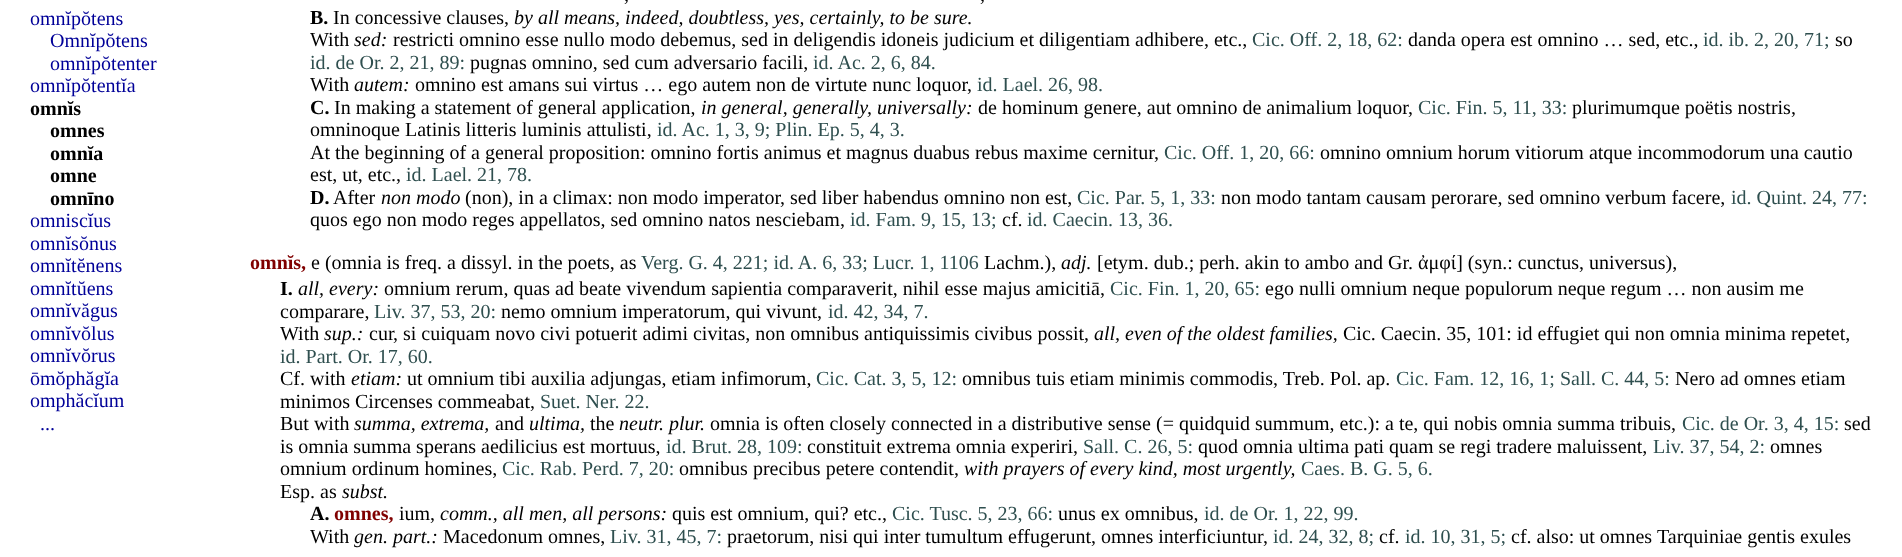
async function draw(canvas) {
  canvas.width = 1902
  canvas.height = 557
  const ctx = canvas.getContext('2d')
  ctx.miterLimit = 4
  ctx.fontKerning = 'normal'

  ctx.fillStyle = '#fff'
  ctx.fillRect(0, 0, 1902, 557)
  ctx.font = '20px Liberation Serif'
  ctx.fillStyle = '#000098'
  ctx.fillText('omnĭpŏtens', 30, 25)
  ctx.fillText('Omnĭpŏtens', 50, 47)
  ctx.fillText('omnĭpŏtenter', 50, 70)
  ctx.fillText('omnĭpŏtentĭa', 30, 92)
  ctx.font = 'bold 20px Liberation Serif'
  ctx.fillStyle = '#000'
  ctx.fillText('omnĭs', 30, 115)
  ctx.fillText('omnes', 50, 137)
  ctx.fillText('omnĭa', 50, 160)
  ctx.fillText('omne', 50, 182)
  ctx.fillText('omnīno', 50, 205)
  ctx.font = '20px Liberation Serif'
  ctx.fillStyle = '#000098'
  ctx.fillText('omniscĭus', 30, 227)
  ctx.fillText('omnĭsŏnus', 30, 250)
  ctx.fillText('omnĭtĕnens', 30, 272)
  ctx.fillText('omnĭtŭens', 30, 295)
  ctx.fillText('omnĭvăgus', 30, 317)
  ctx.fillText('omnĭvŏlus', 30, 340)
  ctx.fillText('omnĭvŏrus', 30, 362)
  ctx.fillText('ōmŏphăgĭa', 30, 385)
  ctx.fillText('omphăcĭum', 30, 407)
  ctx.fillText('...', 40, 430)
  ctx.fillStyle = '#000'
  ctx.fillText(',', 624, 1)
  ctx.fillText(',', 980, 1)
  ctx.font = 'bold 20px Liberation Serif'
  ctx.fillText('B.', 310, 24)
  ctx.font = '20px Liberation Serif'
  ctx.fillText('In concessive clauses,', 333, 24)
  ctx.font = 'italic 20px Liberation Serif'
  ctx.fillText('by all means, indeed, doubtless, yes, certainly, to be sure.', 514, 24)
  ctx.font = '20px Liberation Serif'
  ctx.fillText('With', 310, 46)
  ctx.font = 'italic 20px Liberation Serif'
  ctx.fillText('sed:', 354, 46)
  ctx.font = '20px Liberation Serif'
  ctx.fillText('restricti omnino esse nullo modo debemus, sed in deligendis idoneis judicium et diligentiam adhibere, etc.,', 393, 46)
  ctx.fillStyle = '#2f4f4f'
  ctx.fillText('Cic. Off. 2, 18, 62:', 1252, 46)
  ctx.fillStyle = '#000'
  ctx.fillText('danda opera est omnino … sed, etc.,', 1408, 46)
  ctx.fillStyle = '#2f4f4f'
  ctx.fillText('id. ib. 2, 20, 71;', 1703, 46)
  ctx.fillStyle = '#000'
  ctx.fillText('so', 1835, 46)
  ctx.fillStyle = '#2f4f4f'
  ctx.fillText('id. de Or. 2, 21, 89:', 310, 69)
  ctx.fillStyle = '#000'
  ctx.fillText('pugnas omnino, sed cum adversario facili,', 470, 69)
  ctx.fillStyle = '#2f4f4f'
  ctx.fillText('id. Ac. 2, 6, 84.', 813, 69)
  ctx.fillStyle = '#000'
  ctx.fillText('With', 310, 91)
  ctx.font = 'italic 20px Liberation Serif'
  ctx.fillText('autem:', 354, 91)
  ctx.font = '20px Liberation Serif'
  ctx.fillText('omnino est amans sui virtus … ego autem non de virtute nunc loquor', 415, 91)
  ctx.fillText(',', 967, 91)
  ctx.fillStyle = '#2f4f4f'
  ctx.fillText('id. Lael. 26, 98.', 977, 91)
  ctx.font = 'bold 20px Liberation Serif'
  ctx.fillStyle = '#000'
  ctx.fillText('C.', 310, 114)
  ctx.font = '20px Liberation Serif'
  ctx.fillText('In making a statement of general application,', 334, 114)
  ctx.font = 'italic 20px Liberation Serif'
  ctx.fillText('in general, generally, universally:', 701, 114)
  ctx.font = '20px Liberation Serif'
  ctx.fillText('de hominum genere, aut omnino de animalium loquor', 978, 114)
  ctx.fillText(',', 1408, 114)
  ctx.fillStyle = '#2f4f4f'
  ctx.fillText('Cic. Fin. 5, 11, 33:', 1418, 114)
  ctx.fillStyle = '#000'
  ctx.fillText('plurimumque poëtis nostris,', 1572, 114)
  ctx.fillText('omninoque Latinis litteris luminis attulisti,', 310, 136)
  ctx.fillStyle = '#2f4f4f'
  ctx.fillText('id. Ac. 1, 3, 9; Plin. Ep. 5, 4, 3.', 657, 136)
  ctx.fillStyle = '#000'
  ctx.fillText('At the beginning of a general proposition: omnino fortis animus et magnus duabus rebus maxime cernitur', 310, 159)
  ctx.fillText(',', 1154, 159)
  ctx.fillStyle = '#2f4f4f'
  ctx.fillText('Cic. Off. 1, 20, 66:', 1164, 159)
  ctx.fillStyle = '#000'
  ctx.fillText('omnino omnium horum vitiorum atque incommodorum una cautio', 1320, 159)
  ctx.fillText('est, ut, etc.,', 310, 181)
  ctx.fillStyle = '#2f4f4f'
  ctx.fillText('id. Lael. 21, 78.', 406, 181)
  ctx.font = 'bold 20px Liberation Serif'
  ctx.fillStyle = '#000'
  ctx.fillText('D.', 310, 204)
  ctx.font = '20px Liberation Serif'
  ctx.fillText('After', 333, 204)
  ctx.font = 'italic 20px Liberation Serif'
  ctx.fillText('non modo', 381, 204)
  ctx.font = '20px Liberation Serif'
  ctx.fillText('(non), in a climax: non modo imperator', 465, 204)
  ctx.fillText(', sed liber habendus omnino non est,', 780, 204)
  ctx.fillStyle = '#2f4f4f'
  ctx.fillText('Cic. Par. 5, 1, 33:', 1077, 204)
  ctx.fillStyle = '#000'
  ctx.fillText('non modo tantam causam perorare, sed omnino verbum facere,', 1221, 204)
  ctx.fillStyle = '#2f4f4f'
  ctx.fillText('id. Quint. 24, 77:', 1731, 204)
  ctx.fillStyle = '#000'
  ctx.fillText('quos ego non modo reges appellatos, sed omnino natos nesciebam,', 310, 226)
  ctx.fillStyle = '#2f4f4f'
  ctx.fillText('id. Fam. 9, 15, 13;', 850, 226)
  ctx.fillStyle = '#000'
  ctx.fillText('cf.', 1002, 226)
  ctx.fillStyle = '#2f4f4f'
  ctx.fillText('id. Caecin. 13, 36.', 1027, 226)
  ctx.font = 'bold 20px Liberation Serif'
  ctx.fillStyle = '#800000'
  ctx.fillText('omnĭs,', 250, 269)
  ctx.font = '20px Liberation Serif'
  ctx.fillStyle = '#000'
  ctx.fillText('e (omnia is freq. a dissyl. in the poets, as', 311, 269)
  ctx.fillStyle = '#2f4f4f'
  ctx.fillText('Verg. G. 4, 221; id. A. 6, 33; Lucr. 1, 1106', 641, 269)
  ctx.fillStyle = '#000'
  ctx.fillText('Lachm.),', 984, 269)
  ctx.font = 'italic 20px Liberation Serif'
  ctx.fillText('adj.', 1061, 269)
  ctx.font = '20px Liberation Serif'
  ctx.fillText('[etym. dub.; perh. akin to ambo and Gr. ἀμφί] (syn.: cunctus, universus),', 1097, 269)
  ctx.font = 'bold 20px Liberation Serif'
  ctx.fillText('I.', 280, 295)
  ctx.font = 'italic 20px Liberation Serif'
  ctx.fillText('all, every:', 298, 295)
  ctx.font = '20px Liberation Serif'
  ctx.fillText('omnium rerum, quas ad beate vivendum sapientia comparaverit, nihil esse majus amicitiā,', 384, 295)
  ctx.fillStyle = '#2f4f4f'
  ctx.fillText('Cic. Fin. 1, 20, 65:', 1110, 295)
  ctx.fillStyle = '#000'
  ctx.fillText('ego nulli omnium neque populorum neque regum … non ausim me', 1265, 295)
  ctx.fillText('comparare,', 280, 318)
  ctx.fillStyle = '#2f4f4f'
  ctx.fillText('Liv. 37, 53, 20:', 374, 318)
  ctx.fillStyle = '#000'
  ctx.fillText('nemo omnium imperatorum, qui vivunt,', 501, 318)
  ctx.fillStyle = '#2f4f4f'
  ctx.fillText('id. 42, 34, 7.', 828, 318)
  ctx.fillStyle = '#000'
  ctx.fillText('With', 280, 340)
  ctx.font = 'italic 20px Liberation Serif'
  ctx.fillText('sup.:', 324, 340)
  ctx.font = '20px Liberation Serif'
  ctx.fillText('cur', 369, 340)
  ctx.fillText(', si cuiquam novo civi potuerit adimi civitas, non omnibus antiquissimis civibus possit,', 393, 340)
  ctx.font = 'italic 20px Liberation Serif'
  ctx.fillText('all, even of the oldest families,', 1094, 340)
  ctx.font = '20px Liberation Serif'
  ctx.fillText('Cic. Caecin. 35, 101: id effugiet qui non omnia minima repetet,', 1343, 340)
  ctx.fillStyle = '#2f4f4f'
  ctx.fillText('id. Part. Or. 17, 60.', 280, 363)
  ctx.fillStyle = '#000'
  ctx.fillText('Cf. with', 280, 385)
  ctx.font = 'italic 20px Liberation Serif'
  ctx.fillText('etiam:', 351, 385)
  ctx.font = '20px Liberation Serif'
  ctx.fillText('ut omnium tibi auxilia adjungas, etiam infimorum,', 407, 385)
  ctx.fillStyle = '#2f4f4f'
  ctx.fillText('Cic. Cat. 3, 5, 12:', 816, 385)
  ctx.fillStyle = '#000'
  ctx.fillText('omnibus tuis etiam minimis commodis, Treb. Pol. ap.', 962, 385)
  ctx.fillStyle = '#2f4f4f'
  ctx.fillText('Cic. Fam. 12, 16, 1; Sall. C. 44, 5:', 1396, 385)
  ctx.fillStyle = '#000'
  ctx.fillText('Nero ad omnes etiam', 1675, 385)
  ctx.fillText('minimos Circenses commeabat,', 280, 408)
  ctx.fillStyle = '#2f4f4f'
  ctx.fillText('Suet. Ner. 22.', 540, 408)
  ctx.fillStyle = '#000'
  ctx.fillText('But with', 280, 430)
  ctx.font = 'italic 20px Liberation Serif'
  ctx.fillText('summa, extrema,', 354, 430)
  ctx.font = '20px Liberation Serif'
  ctx.fillText('and', 495, 430)
  ctx.font = 'italic 20px Liberation Serif'
  ctx.fillText('ultima,', 529, 430)
  ctx.font = '20px Liberation Serif'
  ctx.fillText('the', 590, 430)
  ctx.font = 'italic 20px Liberation Serif'
  ctx.fillText('neutr. plur.', 619, 430)
  ctx.font = '20px Liberation Serif'
  ctx.fillText('omnia is often closely connected in a distributive sense (= quidquid summum, etc.): a te, qui nobis omnia summa tribuis,', 710, 430)
  ctx.fillStyle = '#2f4f4f'
  ctx.fillText('Cic. de Or. 3, 4, 15:', 1682, 430)
  ctx.fillStyle = '#000'
  ctx.fillText('sed', 1844, 430)
  ctx.fillText('is omnia summa sperans aedilicius est mortuus,', 280, 453)
  ctx.fillStyle = '#2f4f4f'
  ctx.fillText('id. Brut. 28, 109:', 666, 453)
  ctx.fillStyle = '#000'
  ctx.fillText('constituit extrema omnia experiri,', 807, 453)
  ctx.fillStyle = '#2f4f4f'
  ctx.fillText('Sall. C. 26, 5:', 1083, 453)
  ctx.fillStyle = '#000'
  ctx.fillText('quod omnia ultima pati quam se regi tradere maluissent,', 1198, 453)
  ctx.fillStyle = '#2f4f4f'
  ctx.fillText('Liv. 37, 54, 2:', 1653, 453)
  ctx.fillStyle = '#000'
  ctx.fillText('omnes', 1770, 453)
  ctx.fillText('omnium ordinum homines,', 280, 475)
  ctx.fillStyle = '#2f4f4f'
  ctx.fillText('Cic. Rab. Perd. 7, 20:', 502, 475)
  ctx.fillStyle = '#000'
  ctx.fillText('omnibus precibus petere contendit,', 679, 475)
  ctx.font = 'italic 20px Liberation Serif'
  ctx.fillText('with prayers of every kind, most urgently,', 964, 475)
  ctx.font = '20px Liberation Serif'
  ctx.fillStyle = '#2f4f4f'
  ctx.fillText('Caes. B. G. 5, 6.', 1301, 475)
  ctx.fillStyle = '#000'
  ctx.fillText('Esp. as', 280, 498)
  ctx.font = 'italic 20px Liberation Serif'
  ctx.fillText('subst.', 342, 498)
  ctx.font = 'bold 20px Liberation Serif'
  ctx.fillText('A.', 310, 520)
  ctx.fillStyle = '#800000'
  ctx.fillText('omnes,', 334, 520)
  ctx.font = '20px Liberation Serif'
  ctx.fillStyle = '#000'
  ctx.fillText('ium,', 399, 520)
  ctx.font = 'italic 20px Liberation Serif'
  ctx.fillText('comm., all men, all persons:', 440, 520)
  ctx.font = '20px Liberation Serif'
  ctx.fillText('quis est omnium, qui? etc.,', 672, 520)
  ctx.fillStyle = '#2f4f4f'
  ctx.fillText('Cic. Tusc. 5, 23, 66:', 892, 520)
  ctx.fillStyle = '#000'
  ctx.fillText('unus ex omnibus,', 1058, 520)
  ctx.fillStyle = '#2f4f4f'
  ctx.fillText('id. de Or. 1, 22, 99.', 1204, 520)
  ctx.fillStyle = '#000'
  ctx.fillText('With', 310, 543)
  ctx.font = 'italic 20px Liberation Serif'
  ctx.fillText('gen. part.:', 354, 543)
  ctx.font = '20px Liberation Serif'
  ctx.fillText('Macedonum omnes,', 443, 543)
  ctx.fillStyle = '#2f4f4f'
  ctx.fillText('Liv. 31, 45, 7:', 610, 543)
  ctx.fillStyle = '#000'
  ctx.fillText('praetorum, nisi qui inter tumultum effugerunt, omnes interficiuntur', 727, 543)
  ctx.fillText(',', 1263, 543)
  ctx.fillStyle = '#2f4f4f'
  ctx.fillText('id. 24, 32, 8;', 1273, 543)
  ctx.fillStyle = '#000'
  ctx.fillText('cf.', 1379, 543)
  ctx.fillStyle = '#2f4f4f'
  ctx.fillText('id. 10, 31, 5;', 1405, 543)
  ctx.fillStyle = '#000'
  ctx.fillText('cf. also: ut omnes', 1511, 543)
  ctx.fillText('Tarquiniae gentis exules', 1657, 543)
}

draw(document.querySelector('canvas'))
